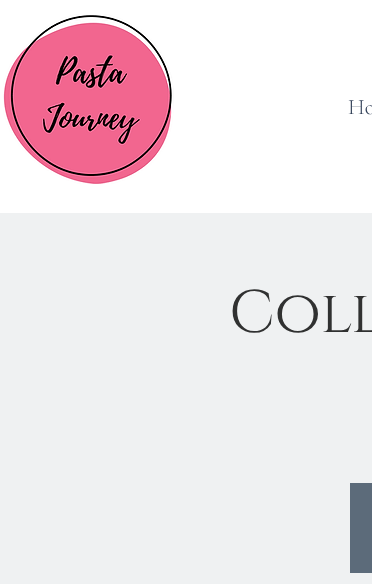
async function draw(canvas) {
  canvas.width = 372
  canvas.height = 584
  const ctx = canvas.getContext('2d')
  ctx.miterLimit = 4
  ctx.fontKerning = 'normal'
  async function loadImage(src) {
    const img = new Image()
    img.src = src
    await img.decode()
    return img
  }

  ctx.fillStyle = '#fff'
  ctx.fillRect(0, 0, 372, 584)
  ctx.drawImage(await loadImage('image0.png'), 3, 14, 171, 170)
  ctx.font = '300 22px Cormorant Garamond'
  ctx.fillStyle = '#324158'
  ctx.fillText('Ho', 348, 114)
  ctx.fillStyle = '#eff1f2'
  ctx.fillRect(0, 213, 372, 371)
  ctx.font = '60px Cinzel'
  ctx.fillStyle = '#303131'
  ctx.fillText('Coll', 229, 332)
  ctx.fillStyle = '#5c6b7a'
  ctx.fillRect(350, 483, 22, 90)
}

draw(document.querySelector('canvas'))
